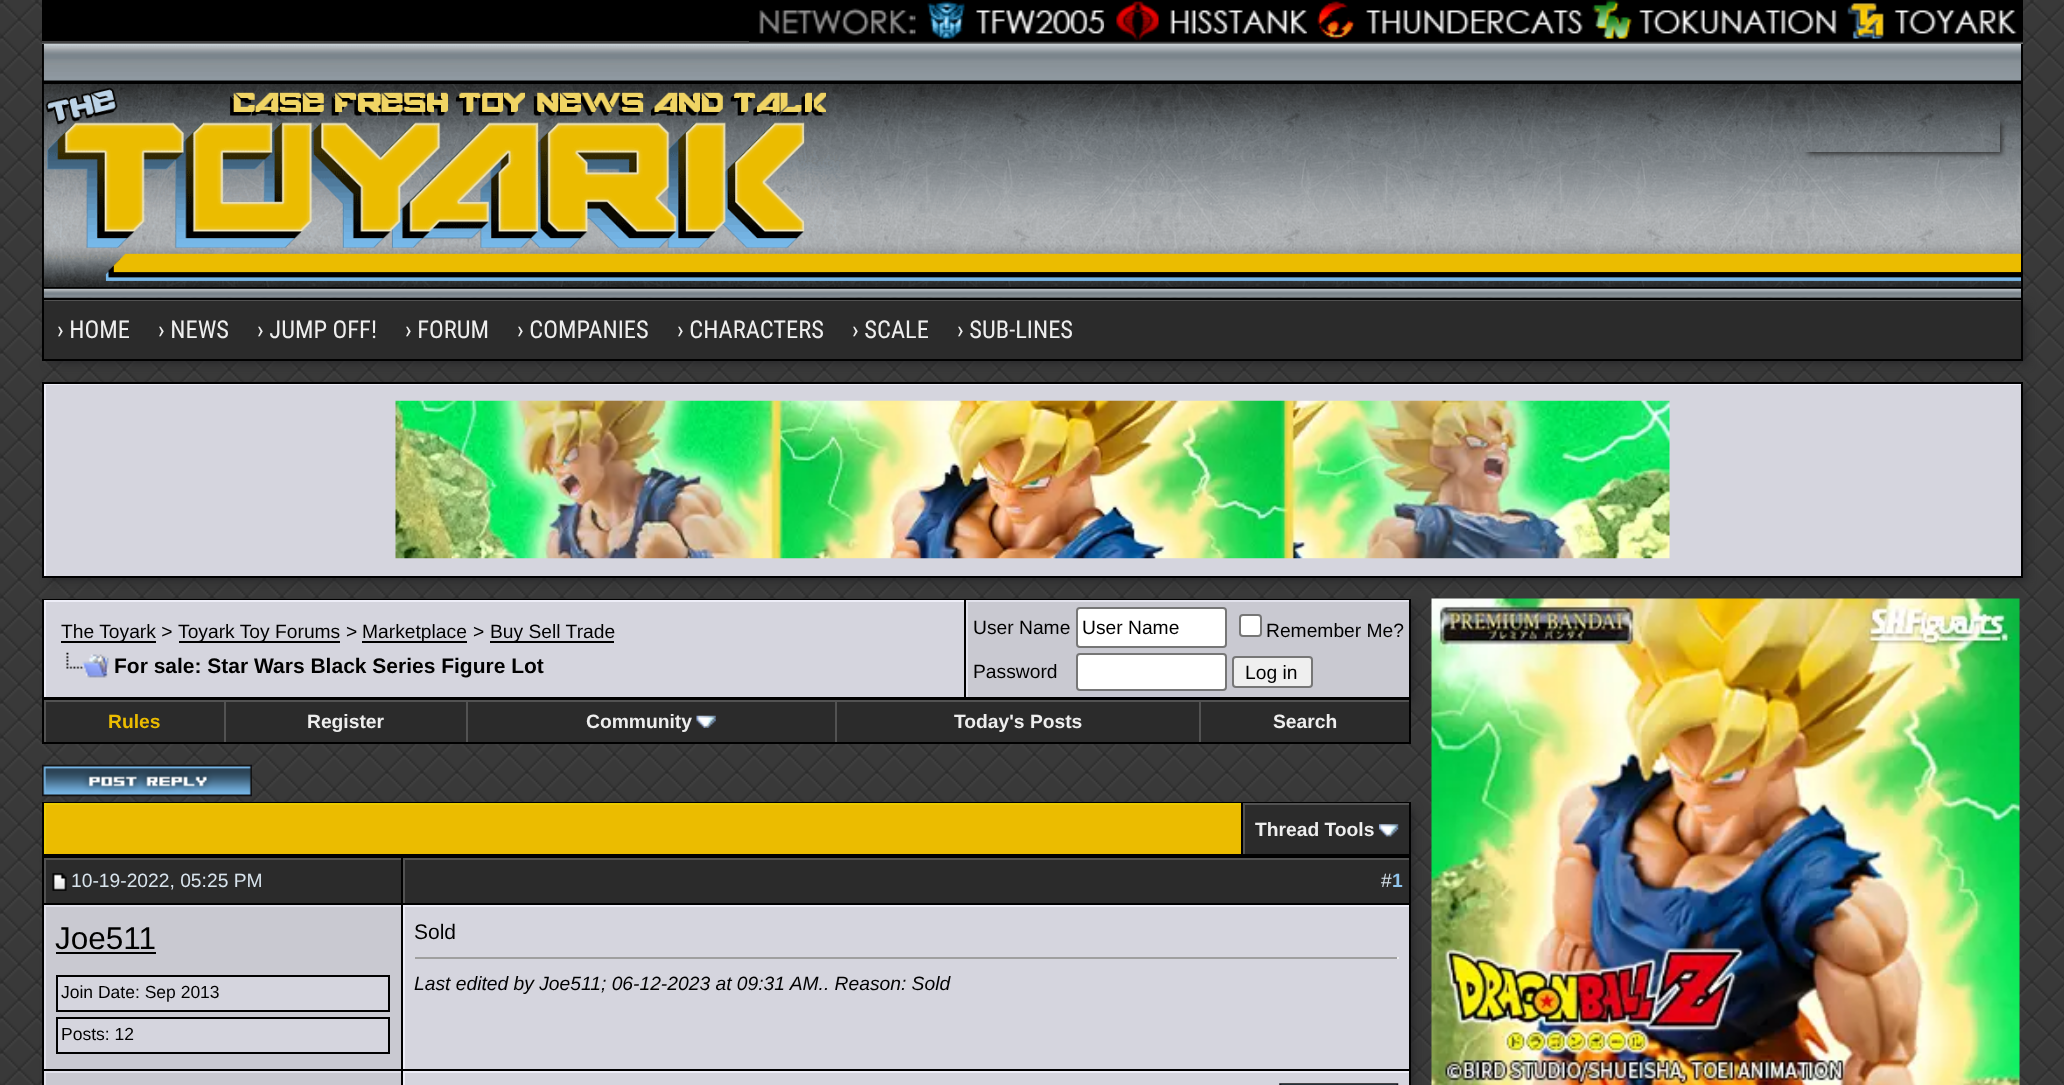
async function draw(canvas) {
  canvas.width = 2064
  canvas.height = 1085
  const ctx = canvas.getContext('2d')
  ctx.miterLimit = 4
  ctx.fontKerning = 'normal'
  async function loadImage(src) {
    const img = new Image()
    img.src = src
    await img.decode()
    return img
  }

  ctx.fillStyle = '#fff'
  ctx.fillRect(0, 0, 2064, 1085)
  ctx.drawImage(await loadImage('image0.png'), 0, 0, 2064, 1085)
  ctx.fillStyle = '#000'
  ctx.fillRect(42, 0, 707, 41)
  ctx.fillStyle = '#3f3f3f'
  ctx.fillRect(42, 41, 1981, 3)
  ctx.drawImage(await loadImage('image1.png'), 749, 0, 1274, 44)
  ctx.drawImage(await loadImage('image2.png'), 913, 1, 192, 38)
  ctx.drawImage(await loadImage('image3.png'), 1104, 1, 204, 40)
  ctx.drawImage(await loadImage('image4.png'), 1307, 1, 276, 38)
  ctx.drawImage(await loadImage('image5.png'), 42, 43, 1981, 255)
  ctx.fillStyle = '#000'
  ctx.fillRect(2021, 44, 2, 254)
  ctx.fillRect(42, 44, 2, 254)
  ctx.drawImage(await loadImage('image6.png'), 43, 43, 797, 255)
  ctx.save()
  ctx.beginPath()
  ctx.moveTo(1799, 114)
  ctx.lineTo(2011, 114)
  ctx.lineTo(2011, 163)
  ctx.lineTo(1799, 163)
  ctx.closePath()
  ctx.moveTo(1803, 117)
  ctx.lineTo(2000, 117)
  ctx.lineTo(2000, 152)
  ctx.lineTo(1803, 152)
  ctx.closePath()
  ctx.clip('evenodd')
  ctx.fillStyle = '#333'
  ctx.filter = 'blur(2.5px)'
  ctx.beginPath()
  ctx.rect(1808, 123, 194, 31)
  ctx.fill()
  ctx.filter = 'none'
  ctx.restore()
  ctx.fillStyle = '#29292b'
  ctx.filter = 'blur(4.5px)'
  ctx.beginPath()
  ctx.rect(49, 305, 1978, 59)
  ctx.fill()
  ctx.filter = 'none'
  ctx.fillStyle = '#2b2b2b'
  ctx.fillRect(44, 301, 1977, 58)
  ctx.fillStyle = '#525252'
  ctx.fillRect(44, 300, 1977, 1)
  ctx.strokeStyle = '#000'
  ctx.lineWidth = 2
  ctx.strokeRect(43, 299, 1979, 61)
  ctx.font = '24.5px Roboto Condensed'
  ctx.fillStyle = '#eee'
  ctx.fillText('› HOME', 57, 338)
  ctx.fillText('› NEWS', 158, 338)
  ctx.fillText('› JUMP OFF!', 257, 338)
  ctx.fillText('› FORUM', 405, 338)
  ctx.fillText('› COMPANIES', 517, 338)
  ctx.fillText('› CHARACTERS', 677, 338)
  ctx.fillText('› SCALE', 852, 338)
  ctx.fillText('› SUB-LINES', 957, 338)
  ctx.fillStyle = '#29292b'
  ctx.filter = 'blur(4.5px)'
  ctx.beginPath()
  ctx.rect(49, 389, 1978, 192)
  ctx.fill()
  ctx.filter = 'none'
  ctx.fillStyle = '#d5d5de'
  ctx.fillRect(46, 385, 1975, 191)
  ctx.save()
  ctx.beginPath()
  ctx.rect(44, 383, 1977, 193)
  ctx.clip()
  ctx.fillStyle = '#ededf7'
  ctx.beginPath()
  ctx.moveTo(-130, 210)
  ctx.lineTo(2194, 210)
  ctx.lineTo(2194, 749)
  ctx.lineTo(-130, 749)
  ctx.closePath()
  ctx.moveTo(46, 385)
  ctx.lineTo(2023, 385)
  ctx.lineTo(2023, 578)
  ctx.lineTo(46, 578)
  ctx.closePath()
  ctx.fill('evenodd')
  ctx.restore()
  ctx.strokeRect(43, 383, 1979, 194)
  ctx.drawImage(await loadImage('image7.png'), 395, 400, 1275, 159)
  ctx.fillStyle = '#29292b'
  ctx.filter = 'blur(4.5px)'
  ctx.beginPath()
  ctx.rect(49, 606, 1365, 96)
  ctx.fill()
  ctx.filter = 'none'
  ctx.fillStyle = '#000'
  ctx.fillRect(42, 599, 1369, 145)
  ctx.fillStyle = '#d5d5de'
  ctx.fillRect(46, 602, 918, 95)
  ctx.fillStyle = '#ededf7'
  ctx.fillRect(44, 600, 920, 2)
  ctx.fillRect(44, 600, 2, 97)
  ctx.fillStyle = '#000'
  ctx.fillRect(61, 641, 95, 2)
  ctx.font = '19.25px Liberation Sans'
  ctx.fillText('The Toyark >', 61, 638)
  ctx.fillRect(179, 641, 161, 2)
  ctx.fillText('Toyark Toy Forums', 178, 638)
  ctx.fillText('>', 346, 638)
  ctx.fillRect(362, 641, 105, 2)
  ctx.fillText('Marketplace', 362, 638)
  ctx.fillText('>', 473, 638)
  ctx.fillRect(490, 641, 124, 2)
  ctx.fillText('Buy Sell Trade', 490, 638)
  ctx.drawImage(await loadImage('image8.png'), 66, 652, 43, 26)
  ctx.font = 'bold 21px Liberation Sans'
  ctx.fillText('For sale: Star Wars Black Series Figure Lot', 114, 673)
  ctx.fillStyle = '#c9c9d1'
  ctx.fillRect(968, 602, 441, 95)
  ctx.fillStyle = '#e1e1eb'
  ctx.fillRect(966, 600, 443, 2)
  ctx.fillRect(966, 600, 2, 97)
  ctx.font = '19.25px Liberation Sans'
  ctx.fillStyle = '#000'
  ctx.fillText('User Name', 973, 634)
  ctx.fillStyle = '#fff'
  ctx.beginPath()
  ctx.roundRect(1077, 608, 149, 39, 3)
  ctx.fill()
  ctx.strokeStyle = '#767676'
  ctx.stroke()
  ctx.fillStyle = '#000'
  ctx.fillText('User Name', 1082, 634)
  ctx.fillStyle = '#fff'
  ctx.beginPath()
  ctx.roundRect(1240, 615, 21, 21, 3)
  ctx.fill()
  ctx.stroke()
  ctx.fillStyle = '#000'
  ctx.fillText('Remember Me?', 1266, 637)
  ctx.fillText('Password', 973, 678)
  ctx.fillStyle = '#fff'
  ctx.beginPath()
  ctx.roundRect(1077, 654, 149, 36, 3)
  ctx.fill()
  ctx.stroke()
  ctx.fillStyle = '#efefef'
  ctx.beginPath()
  ctx.roundRect(1233, 657, 79, 30, 3)
  ctx.fill()
  ctx.stroke()
  ctx.fillStyle = '#000'
  ctx.fillText('Log in', 1245, 679)
  ctx.fillStyle = '#2b2b2b'
  ctx.fillRect(46, 702, 178, 40)
  ctx.fillStyle = '#525252'
  ctx.fillRect(44, 700, 1365, 2)
  ctx.fillRect(44, 700, 2, 42)
  ctx.font = 'bold 19.25px Liberation Sans'
  ctx.fillStyle = '#ebbc00'
  ctx.fillText('Rules', 108, 728)
  ctx.fillStyle = '#2b2b2b'
  ctx.fillRect(226, 702, 240, 40)
  ctx.fillStyle = '#525252'
  ctx.fillRect(224, 700, 2, 42)
  ctx.fillStyle = '#eee'
  ctx.fillText('Register', 307, 728)
  ctx.fillStyle = '#2b2b2b'
  ctx.fillRect(468, 702, 367, 40)
  ctx.fillStyle = '#525252'
  ctx.fillRect(466, 700, 2, 42)
  ctx.fillStyle = '#eee'
  ctx.fillText('Community', 586, 728)
  ctx.drawImage(await loadImage('image9.png'), 696, 715, 20, 13)
  ctx.fillStyle = '#2b2b2b'
  ctx.fillRect(837, 702, 362, 40)
  ctx.fillStyle = '#525252'
  ctx.fillRect(835, 700, 2, 42)
  ctx.fillStyle = '#eee'
  ctx.fillText('Today\'s Posts', 954, 728)
  ctx.fillStyle = '#2b2b2b'
  ctx.fillRect(1201, 702, 208, 40)
  ctx.fillStyle = '#525252'
  ctx.fillRect(1199, 700, 2, 42)
  ctx.fillStyle = '#eee'
  ctx.fillText('Search', 1273, 728)
  ctx.fillStyle = '#29292b'
  ctx.filter = 'blur(4.5px)'
  ctx.beginPath()
  ctx.rect(49, 809, 1365, 50)
  ctx.fill()
  ctx.filter = 'none'
  ctx.drawImage(await loadImage('image10.png'), 42, 764, 210, 33)
  ctx.fillStyle = '#000'
  ctx.fillRect(42, 802, 1369, 54)
  ctx.fillStyle = '#ebbc00'
  ctx.fillRect(46, 805, 1195, 49)
  ctx.fillStyle = '#ebcb00'
  ctx.fillRect(44, 803, 1197, 2)
  ctx.fillRect(44, 803, 2, 51)
  ctx.fillStyle = '#2b2b2b'
  ctx.fillRect(1245, 805, 164, 49)
  ctx.fillStyle = '#525252'
  ctx.fillRect(1243, 803, 166, 2)
  ctx.fillRect(1243, 803, 2, 51)
  ctx.fillStyle = '#eee'
  ctx.fillText('Thread Tools', 1255, 836)
  ctx.drawImage(await loadImage('image11.png'), 1379, 824, 20, 13)
  ctx.fillStyle = '#29292b'
  ctx.filter = 'blur(4.5px)'
  ctx.beginPath()
  ctx.rect(49, 863, 1365, 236)
  ctx.fill()
  ctx.filter = 'none'
  ctx.fillStyle = '#000'
  ctx.fillRect(42, 856, 1369, 229)
  ctx.fillStyle = '#2b2b2b'
  ctx.fillRect(46, 860, 355, 43)
  ctx.fillStyle = '#525252'
  ctx.fillRect(44, 858, 357, 2)
  ctx.fillRect(44, 858, 2, 45)
  ctx.drawImage(await loadImage('image12.png'), 52, 873, 15, 18)
  ctx.font = '19.25px Liberation Sans'
  ctx.fillStyle = '#d8e4ed'
  ctx.fillText('10-19-2022, 05:25 PM', 71, 887)
  ctx.fillStyle = '#2b2b2b'
  ctx.fillRect(405, 860, 1004, 43)
  ctx.fillStyle = '#525252'
  ctx.fillRect(403, 858, 1006, 2)
  ctx.fillRect(403, 858, 2, 45)
  ctx.fillStyle = '#d8e4ed'
  ctx.fillText('#', 1381, 887)
  ctx.font = 'bold 19.25px Liberation Sans'
  ctx.fillStyle = '#91c5ed'
  ctx.fillText('1', 1392, 887)
  ctx.fillStyle = '#c9c9d1'
  ctx.fillRect(46, 907, 355, 162)
  ctx.fillStyle = '#e1e1eb'
  ctx.fillRect(44, 905, 357, 2)
  ctx.fillRect(44, 905, 2, 164)
  ctx.font = '31.5px Liberation Sans'
  ctx.fillStyle = '#000'
  ctx.fillText('Joe511', 55, 949)
  ctx.fillRect(56, 952, 100, 2)
  ctx.fillStyle = '#d5d5de'
  ctx.beginPath()
  ctx.rect(57, 976, 332, 35)
  ctx.fill()
  ctx.strokeStyle = '#000'
  ctx.stroke()
  ctx.font = '17.5px Liberation Sans'
  ctx.fillStyle = '#000'
  ctx.fillText('Join Date: Sep 2013', 61, 998)
  ctx.fillStyle = '#d5d5de'
  ctx.beginPath()
  ctx.rect(57, 1018, 332, 35)
  ctx.fill()
  ctx.stroke()
  ctx.fillStyle = '#000'
  ctx.fillText('Posts: 12', 61, 1040)
  ctx.fillStyle = '#d5d5de'
  ctx.fillRect(405, 907, 1004, 162)
  ctx.fillStyle = '#ededf7'
  ctx.fillRect(403, 905, 1006, 2)
  ctx.fillRect(403, 905, 2, 164)
  ctx.font = '21px Liberation Sans'
  ctx.fillStyle = '#000'
  ctx.fillText('Sold', 414, 939)
  ctx.fillStyle = '#9f9f9f'
  ctx.fillRect(415, 957, 983, 2)
  ctx.fillStyle = '#eee'
  ctx.fillRect(1397, 957, 2, 2)
  ctx.font = 'italic 19.25px Liberation Sans'
  ctx.fillStyle = '#000'
  ctx.fillText('Last edited by Joe511; 06-12-2023 at 09:31 AM.. Reason: Sold', 414, 990)
  ctx.fillStyle = '#c9c9d1'
  ctx.fillRect(46, 1073, 355, 12)
  ctx.fillStyle = '#e1e1eb'
  ctx.fillRect(44, 1071, 357, 2)
  ctx.fillRect(44, 1071, 2, 14)
  ctx.fillStyle = '#d5d5de'
  ctx.fillRect(405, 1073, 1004, 12)
  ctx.fillStyle = '#ededf7'
  ctx.fillRect(403, 1071, 1006, 2)
  ctx.fillRect(403, 1071, 2, 14)
  ctx.drawImage(await loadImage('image13.png'), 1279, 1083, 120, 2)
  ctx.drawImage(await loadImage('image14.png'), 1431, 598, 589, 487)
}

draw(document.querySelector('canvas'))
